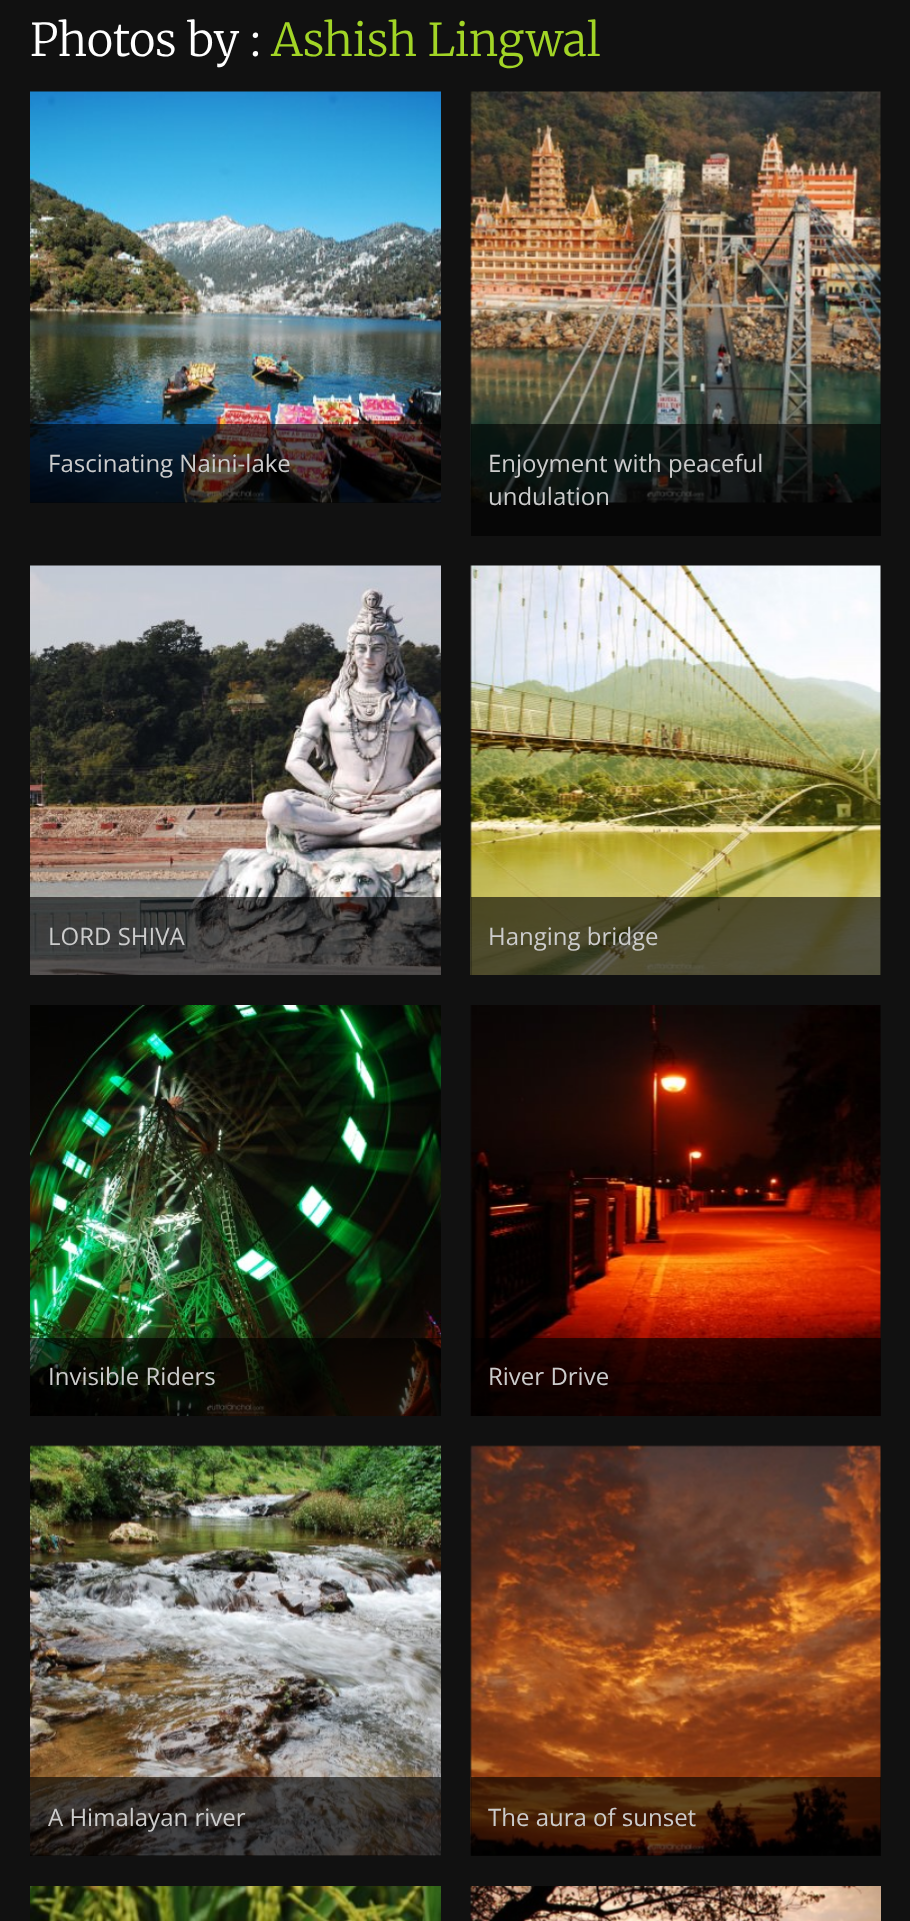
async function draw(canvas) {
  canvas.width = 910
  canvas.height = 1921
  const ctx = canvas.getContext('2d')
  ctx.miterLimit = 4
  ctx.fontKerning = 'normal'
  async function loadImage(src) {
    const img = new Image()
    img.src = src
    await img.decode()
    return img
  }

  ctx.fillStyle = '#111'
  ctx.fillRect(0, 0, 910, 1921)
  ctx.font = '300 45px Merriweather'
  ctx.fillStyle = '#fff'
  ctx.fillText('Photos by :', 30, 56)
  ctx.fillStyle = '#a2d526'
  ctx.fillText('Ashish Lingwal', 271, 56)
  ctx.drawImage(await loadImage('image0.png'), 30, 91, 411, 412)
  ctx.fillStyle = '#0000009e'
  ctx.fillRect(30, 424, 411, 79)
  ctx.font = '24px Open Sans'
  ctx.fillStyle = '#ccc'
  ctx.fillText('Fascinating Naini-lake', 48, 472)
  ctx.drawImage(await loadImage('image1.png'), 470, 91, 411, 412)
  ctx.fillStyle = '#0000009e'
  ctx.fillRect(471, 424, 410, 112)
  ctx.fillStyle = '#ccc'
  ctx.fillText('Enjoyment with peaceful', 488, 472)
  ctx.fillText('undulation', 488, 505)
  ctx.drawImage(await loadImage('image2.png'), 30, 565, 411, 410)
  ctx.fillStyle = '#0000009e'
  ctx.fillRect(30, 897, 411, 78)
  ctx.fillStyle = '#ccc'
  ctx.fillText('LORD SHIVA', 48, 945)
  ctx.drawImage(await loadImage('image3.png'), 470, 565, 411, 410)
  ctx.fillStyle = '#0000009e'
  ctx.fillRect(471, 897, 410, 78)
  ctx.fillStyle = '#ccc'
  ctx.fillText('Hanging bridge', 488, 945)
  ctx.drawImage(await loadImage('image4.png'), 30, 1005, 411, 411)
  ctx.fillStyle = '#0000009e'
  ctx.fillRect(30, 1338, 411, 78)
  ctx.fillStyle = '#ccc'
  ctx.fillText('Invisible Riders', 48, 1385)
  ctx.drawImage(await loadImage('image5.png'), 470, 1005, 411, 411)
  ctx.fillStyle = '#0000009e'
  ctx.fillRect(471, 1338, 410, 78)
  ctx.fillStyle = '#ccc'
  ctx.fillText('River Drive', 488, 1385)
  ctx.drawImage(await loadImage('image6.png'), 30, 1445, 411, 411)
  ctx.fillStyle = '#0000009e'
  ctx.fillRect(30, 1777, 411, 79)
  ctx.fillStyle = '#ccc'
  ctx.fillText('A Himalayan river', 48, 1826)
  ctx.drawImage(await loadImage('image7.png'), 470, 1445, 411, 411)
  ctx.fillStyle = '#0000009e'
  ctx.fillRect(471, 1777, 410, 79)
  ctx.fillStyle = '#ccc'
  ctx.fillText('The aura of sunset', 488, 1826)
  ctx.drawImage(await loadImage('image8.png'), 30, 1886, 411, 35)
  ctx.drawImage(await loadImage('image9.png'), 470, 1886, 411, 35)
}

draw(document.querySelector('canvas'))
